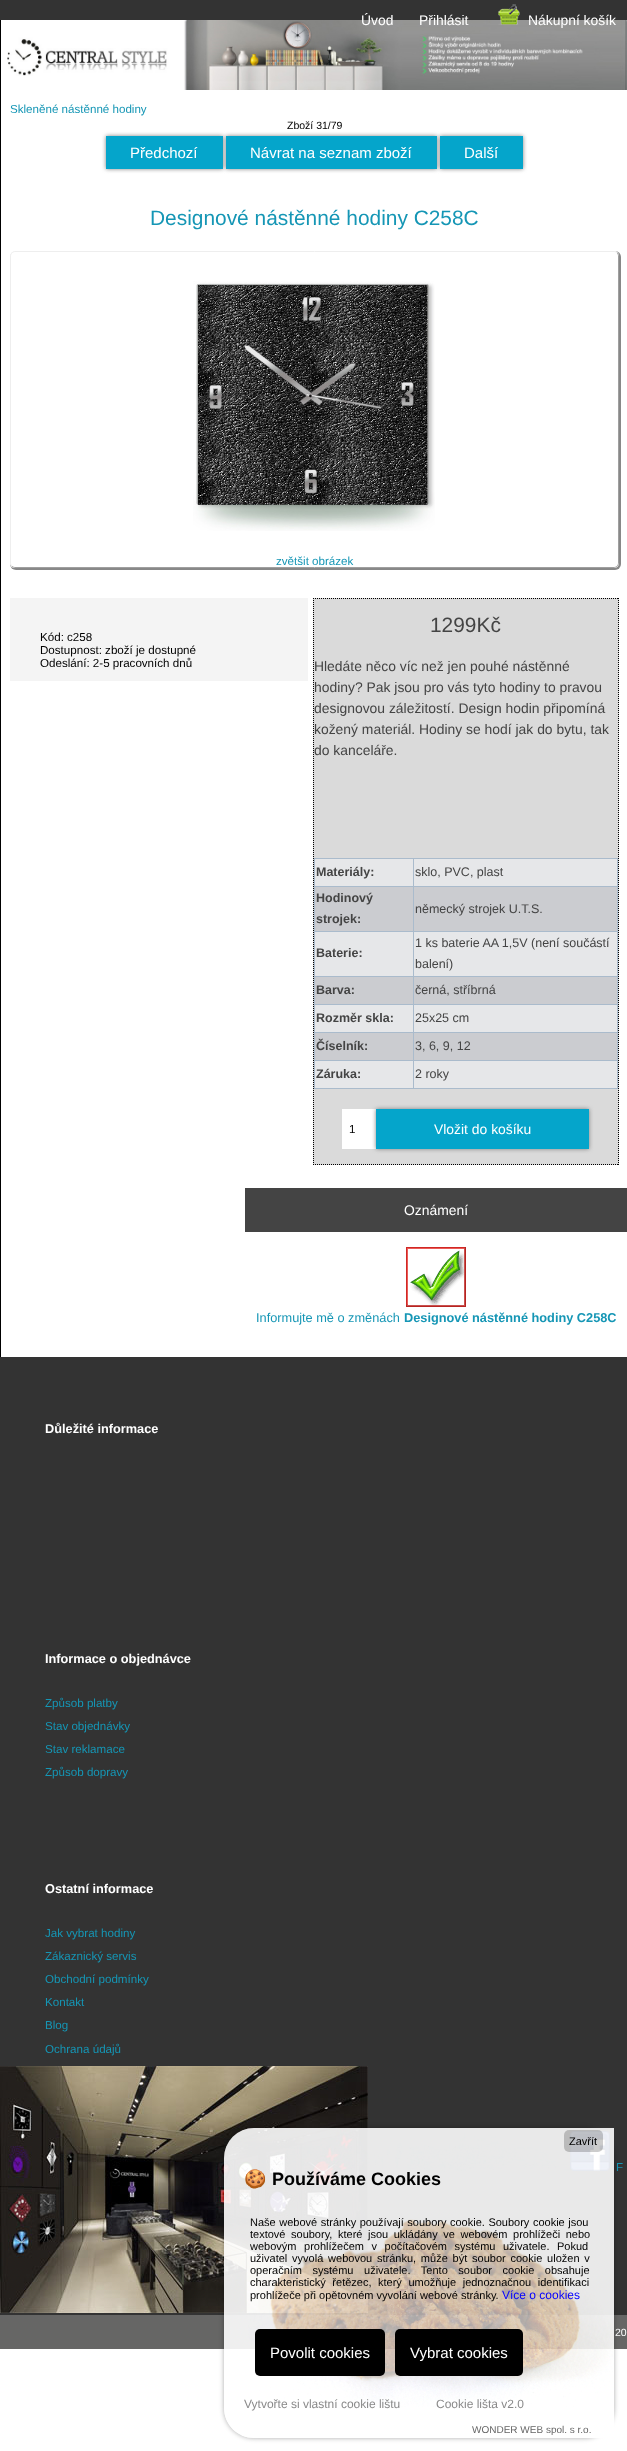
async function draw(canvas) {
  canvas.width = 627
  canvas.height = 2451
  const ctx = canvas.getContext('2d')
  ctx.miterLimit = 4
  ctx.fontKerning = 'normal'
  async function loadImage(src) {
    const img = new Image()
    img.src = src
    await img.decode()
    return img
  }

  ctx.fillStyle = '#fff'
  ctx.fillRect(0, 0, 627, 2451)
  ctx.fillStyle = '#333'
  ctx.fillRect(0, 0, 627, 20)
  ctx.drawImage(await loadImage('image1.png'), 7, 20, 620, 70)
  ctx.font = '13.9px Liberation Sans'
  ctx.fillStyle = '#fff'
  ctx.fillText('Úvod', 361, 25)
  ctx.fillText('Přihlásit', 419, 25)
  ctx.drawImage(await loadImage('image0.png'), 498, 4, 22, 21)
  ctx.fillText('Nákupní košík', 528, 25)
  ctx.fillStyle = '#000'
  ctx.fillRect(0, 20, 1, 1337)
  ctx.font = '11.6px Liberation Sans'
  ctx.fillStyle = '#1596b5'
  ctx.fillText('Skleněné nástěnné hodiny', 10, 113)
  ctx.font = '10.5px Liberation Sans'
  ctx.fillStyle = '#000'
  ctx.fillText('Zboží 31/79', 287, 129)
  ctx.fillStyle = '#808080'
  ctx.filter = 'blur(2px)'
  ctx.beginPath()
  ctx.rect(106, 136, 117, 33)
  ctx.fill()
  ctx.filter = 'none'
  ctx.fillStyle = '#05a5cb'
  ctx.fillRect(106, 136, 117, 33)
  ctx.font = '15px Liberation Sans'
  ctx.fillStyle = '#fff'
  ctx.fillText('Předchozí', 130, 158)
  ctx.fillStyle = '#808080'
  ctx.filter = 'blur(2px)'
  ctx.beginPath()
  ctx.rect(226, 136, 211, 33)
  ctx.fill()
  ctx.filter = 'none'
  ctx.fillStyle = '#05a5cb'
  ctx.fillRect(226, 136, 211, 33)
  ctx.fillStyle = '#fff'
  ctx.fillText('Návrat na seznam zboží', 250, 158)
  ctx.fillStyle = '#808080'
  ctx.filter = 'blur(2px)'
  ctx.beginPath()
  ctx.rect(440, 136, 83, 33)
  ctx.fill()
  ctx.filter = 'none'
  ctx.fillStyle = '#05a5cb'
  ctx.fillRect(440, 136, 83, 33)
  ctx.fillStyle = '#fff'
  ctx.fillText('Další', 464, 158)
  ctx.font = '20.9px Liberation Sans'
  ctx.fillStyle = '#1596b5'
  ctx.fillText('Designové nástěnné hodiny C258C', 150, 225)
  ctx.save()
  ctx.beginPath()
  ctx.moveTo(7, 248)
  ctx.lineTo(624, 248)
  ctx.lineTo(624, 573)
  ctx.lineTo(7, 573)
  ctx.closePath()
  ctx.moveTo(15, 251)
  ctx.lineTo(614, 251)
  ctx.bezierCurveTo(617, 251, 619, 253, 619, 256)
  ctx.lineTo(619, 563)
  ctx.bezierCurveTo(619, 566, 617, 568, 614, 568)
  ctx.lineTo(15, 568)
  ctx.bezierCurveTo(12, 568, 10, 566, 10, 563)
  ctx.lineTo(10, 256)
  ctx.bezierCurveTo(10, 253, 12, 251, 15, 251)
  ctx.closePath()
  ctx.clip('evenodd')
  ctx.fillStyle = '#888'
  ctx.filter = 'blur(0.5px)'
  ctx.beginPath()
  ctx.roundRect(10, 251, 611, 319, 6)
  ctx.fill()
  ctx.filter = 'none'
  ctx.restore()
  ctx.beginPath()
  ctx.moveTo(617, 253)
  ctx.bezierCurveTo(618, 253.5, 618.5, 255, 618.5, 256)
  ctx.lineTo(618.5, 563)
  ctx.bezierCurveTo(618.5, 564, 618, 565.5, 617, 566)
  ctx.bezierCurveTo(616.5, 567, 615, 567.5, 614, 567.5)
  ctx.lineTo(15, 567.5)
  ctx.bezierCurveTo(14, 567.5, 12.5, 567, 12, 566)
  ctx.strokeStyle = '#9f9f9f'
  ctx.stroke()
  ctx.beginPath()
  ctx.moveTo(12, 566)
  ctx.bezierCurveTo(11, 565.5, 10.5, 564, 10.5, 563)
  ctx.lineTo(10.5, 256)
  ctx.bezierCurveTo(10.5, 255, 11, 253.5, 12, 253)
  ctx.bezierCurveTo(12.5, 252, 14, 251.5, 15, 251.5)
  ctx.lineTo(614, 251.5)
  ctx.bezierCurveTo(615, 251.5, 616.5, 252, 617, 253)
  ctx.strokeStyle = '#eee'
  ctx.stroke()
  ctx.drawImage(await loadImage('image2.png'), 193, 281, 242, 250)
  ctx.font = '11.6px Liberation Sans'
  ctx.fillText('zvětšit obrázek', 276, 565)
  ctx.fillStyle = '#f4f4f4'
  ctx.fillRect(10, 598, 298, 83)
  ctx.fillStyle = '#000'
  ctx.fillText('Kód: c258', 40, 641)
  ctx.fillText('Dostupnost: zboží je dostupné', 40, 654)
  ctx.fillText('Odeslání: 2-5 pracovních dnů', 40, 667)
  ctx.fillStyle = '#dadada'
  ctx.fillRect(313, 598, 306, 567)
  ctx.beginPath()
  ctx.moveTo(313, 598.5)
  ctx.lineTo(619, 598.5)
  ctx.strokeStyle = '#000'
  ctx.setLineDash([1, 1])
  ctx.stroke()
  ctx.beginPath()
  ctx.moveTo(618.5, 598)
  ctx.lineTo(618.5, 1165)
  ctx.stroke()
  ctx.beginPath()
  ctx.moveTo(313, 1164.5)
  ctx.lineTo(619, 1164.5)
  ctx.stroke()
  ctx.beginPath()
  ctx.moveTo(313.5, 598)
  ctx.lineTo(313.5, 1165)
  ctx.stroke()
  ctx.font = '20.9px Liberation Sans'
  ctx.fillStyle = '#444'
  ctx.fillText('1299Kč', 430, 632)
  ctx.font = '13.9px Liberation Sans'
  ctx.fillText('Hledáte něco víc než jen pouhé nástěnné', 314, 671)
  ctx.fillText('hodiny? Pak jsou pro vás tyto hodiny to pravou', 314, 692)
  ctx.fillText('designovou záležitostí. Design hodin připomíná', 314, 713)
  ctx.fillText('kožený materiál. Hodiny se hodí jak do bytu, tak', 314, 734)
  ctx.fillText('do kanceláře.', 314, 755)
  ctx.fillStyle = '#abc'
  ctx.fillRect(314, 858, 304, 1)
  ctx.fillRect(617, 858, 1, 231)
  ctx.fillRect(314, 1088, 304, 1)
  ctx.fillRect(314, 858, 1, 231)
  ctx.fillStyle = '#e6e7e9'
  ctx.fillRect(315, 859, 98, 27)
  ctx.font = 'bold 12.5px Liberation Sans'
  ctx.fillStyle = '#444'
  ctx.fillText('Materiály:', 316, 876)
  ctx.fillStyle = '#e6e7e9'
  ctx.fillRect(414, 859, 203, 27)
  ctx.fillStyle = '#abc'
  ctx.fillRect(413, 886, 205, 1)
  ctx.fillRect(413, 931, 205, 1)
  ctx.fillRect(413, 976, 205, 1)
  ctx.fillRect(413, 1004, 205, 1)
  ctx.fillRect(413, 1032, 205, 1)
  ctx.fillRect(413, 1060, 205, 1)
  ctx.fillRect(413, 1060, 1, 29)
  ctx.fillRect(314, 1060, 100, 1)
  ctx.fillRect(413, 1032, 1, 29)
  ctx.fillRect(314, 1032, 100, 1)
  ctx.fillRect(413, 1004, 1, 29)
  ctx.fillRect(314, 1004, 100, 1)
  ctx.fillRect(413, 976, 1, 29)
  ctx.fillRect(314, 976, 100, 1)
  ctx.fillRect(413, 931, 1, 46)
  ctx.fillRect(314, 931, 100, 1)
  ctx.fillRect(413, 886, 1, 46)
  ctx.fillRect(314, 886, 100, 1)
  ctx.fillRect(413, 858, 1, 29)
  ctx.font = '12.5px Liberation Sans'
  ctx.fillStyle = '#444'
  ctx.fillText('sklo, PVC, plast', 415, 876)
  ctx.fillStyle = '#cbccd0'
  ctx.fillRect(315, 887, 98, 44)
  ctx.font = 'bold 12.5px Liberation Sans'
  ctx.fillStyle = '#444'
  ctx.fillText('Hodinový', 316, 902)
  ctx.fillText('strojek:', 316, 923)
  ctx.fillStyle = '#cbccd0'
  ctx.fillRect(414, 887, 203, 44)
  ctx.font = '12.5px Liberation Sans'
  ctx.fillStyle = '#444'
  ctx.fillText('německý strojek U.T.S.', 415, 913)
  ctx.fillStyle = '#e6e7e9'
  ctx.fillRect(315, 932, 98, 44)
  ctx.font = 'bold 12.5px Liberation Sans'
  ctx.fillStyle = '#444'
  ctx.fillText('Baterie:', 316, 957)
  ctx.fillStyle = '#e6e7e9'
  ctx.fillRect(414, 932, 203, 44)
  ctx.font = '12.5px Liberation Sans'
  ctx.fillStyle = '#444'
  ctx.fillText('1 ks baterie AA 1,5V (není součástí', 415, 947)
  ctx.fillText('balení)', 415, 968)
  ctx.fillStyle = '#cbccd0'
  ctx.fillRect(315, 977, 98, 27)
  ctx.font = 'bold 12.5px Liberation Sans'
  ctx.fillStyle = '#444'
  ctx.fillText('Barva:', 316, 994)
  ctx.fillStyle = '#cbccd0'
  ctx.fillRect(414, 977, 203, 27)
  ctx.font = '12.5px Liberation Sans'
  ctx.fillStyle = '#444'
  ctx.fillText('černá, stříbrná', 415, 994)
  ctx.fillStyle = '#e6e7e9'
  ctx.fillRect(315, 1005, 98, 27)
  ctx.font = 'bold 12.5px Liberation Sans'
  ctx.fillStyle = '#444'
  ctx.fillText('Rozměr skla:', 316, 1022)
  ctx.fillStyle = '#e6e7e9'
  ctx.fillRect(414, 1005, 203, 27)
  ctx.font = '12.5px Liberation Sans'
  ctx.fillStyle = '#444'
  ctx.fillText('25x25 cm', 415, 1022)
  ctx.fillStyle = '#cbccd0'
  ctx.fillRect(315, 1033, 98, 27)
  ctx.font = 'bold 12.5px Liberation Sans'
  ctx.fillStyle = '#444'
  ctx.fillText('Číselník:', 316, 1050)
  ctx.fillStyle = '#cbccd0'
  ctx.fillRect(414, 1033, 203, 27)
  ctx.font = '12.5px Liberation Sans'
  ctx.fillStyle = '#444'
  ctx.fillText('3, 6, 9, 12', 415, 1050)
  ctx.fillStyle = '#e6e7e9'
  ctx.fillRect(315, 1061, 98, 27)
  ctx.font = 'bold 12.5px Liberation Sans'
  ctx.fillStyle = '#444'
  ctx.fillText('Záruka:', 316, 1078)
  ctx.fillStyle = '#e6e7e9'
  ctx.fillRect(414, 1061, 203, 27)
  ctx.font = '12.5px Liberation Sans'
  ctx.fillStyle = '#444'
  ctx.fillText('2 roky', 415, 1078)
  ctx.fillStyle = '#fff'
  ctx.fillRect(342, 1109, 34, 40)
  ctx.font = '11.6px Liberation Sans'
  ctx.fillStyle = '#000'
  ctx.fillText('1', 349, 1133)
  ctx.fillStyle = '#808080'
  ctx.filter = 'blur(2px)'
  ctx.beginPath()
  ctx.rect(376, 1109, 213, 40)
  ctx.fill()
  ctx.filter = 'none'
  ctx.fillStyle = '#05a5cb'
  ctx.fillRect(376, 1109, 213, 40)
  ctx.font = '13.9px Liberation Sans'
  ctx.fillStyle = '#fff'
  ctx.fillText('Vložit do košíku', 434, 1134)
  ctx.fillStyle = '#444'
  ctx.fillRect(245, 1188, 382, 44)
  ctx.fillStyle = '#fff'
  ctx.fillText('Oznámení', 404, 1215)
  ctx.drawImage(await loadImage('image3.png'), 406, 1247, 60, 60)
  ctx.font = '12.75px Liberation Sans'
  ctx.fillStyle = '#1596b5'
  ctx.fillText('Informujte mě o změnách', 256, 1322)
  ctx.font = 'bold 12.75px Liberation Sans'
  ctx.fillText('Designové nástěnné hodiny C258C', 404, 1322)
  ctx.fillStyle = '#333'
  ctx.fillRect(0, 1357, 627, 958)
  ctx.fillStyle = '#fff'
  ctx.fillText('Důležité informace', 45, 1433)
  ctx.fillText('Informace o objednávce', 45, 1663)
  ctx.font = '11.6px Liberation Sans'
  ctx.fillStyle = '#1596b5'
  ctx.fillText('Způsob platby', 45, 1707)
  ctx.fillText('Stav objednávky', 45, 1730)
  ctx.fillText('Stav reklamace', 45, 1753)
  ctx.fillText('Způsob dopravy', 45, 1776)
  ctx.font = 'bold 12.75px Liberation Sans'
  ctx.fillStyle = '#fff'
  ctx.fillText('Ostatní informace', 45, 1893)
  ctx.font = '11.6px Liberation Sans'
  ctx.fillStyle = '#1596b5'
  ctx.fillText('Jak vybrat hodiny', 45, 1937)
  ctx.fillText('Zákaznický servis', 45, 1960)
  ctx.fillText('Obchodní podmínky', 45, 1983)
  ctx.fillText('Kontakt', 45, 2006)
  ctx.fillText('Blog', 45, 2029)
  ctx.fillText('Ochrana údajů', 45, 2053)
  ctx.drawImage(await loadImage('image4.png'), 0, 2066, 368, 247)
  ctx.drawImage(await loadImage('image5.png'), 570, 2131, 40, 40)
  ctx.fillText('F', 616, 2171)
  ctx.fillStyle = '#666665'
  ctx.fillRect(0, 2315, 627, 34)
  ctx.font = '10.5px Liberation Sans'
  ctx.fillStyle = '#fff'
  ctx.fillText('20', 615, 2336)
  ctx.save()
  ctx.beginPath()
  ctx.moveTo(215, 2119)
  ctx.lineTo(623, 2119)
  ctx.lineTo(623, 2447)
  ctx.lineTo(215, 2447)
  ctx.closePath()
  ctx.moveTo(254, 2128)
  ctx.lineTo(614, 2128)
  ctx.lineTo(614, 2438)
  ctx.lineTo(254, 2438)
  ctx.bezierCurveTo(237.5, 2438, 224, 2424.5, 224, 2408)
  ctx.lineTo(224, 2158)
  ctx.bezierCurveTo(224, 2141.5, 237.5, 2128, 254, 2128)
  ctx.closePath()
  ctx.clip('evenodd')
  ctx.fillStyle = '#00000054'
  ctx.filter = 'blur(2.5px)'
  ctx.beginPath()
  ctx.roundRect(224, 2128, 390, 310, 30)
  ctx.fill()
  ctx.filter = 'none'
  ctx.restore()
  ctx.fillStyle = '#ffffffd9'
  ctx.beginPath()
  ctx.roundRect(224, 2128, 390, 310, [30, 0, 0, 30])
  ctx.fill()
  ctx.drawImage(await loadImage('image6.png'), 224, 2128, 390, 279)
  ctx.fillStyle = '#00000033'
  ctx.beginPath()
  ctx.roundRect(564, 2130, 39, 22, 5)
  ctx.fill()
  ctx.font = '11px Liberation Sans'
  ctx.fillStyle = '#000'
  ctx.fillText('Zavřít', 569, 2145)
  ctx.font = 'bold 18px Noto Color Emoji'
  ctx.fillText('🍪', 244, 2185)
  ctx.font = 'bold 18px Liberation Sans'
  ctx.fillText('Používáme Cookies', 272, 2185)
  ctx.wordSpacing = '0.5px'
  ctx.font = '11px Liberation Sans'
  ctx.fillText('Naše webové stránky používají soubory cookie. Soubory cookie jsou', 250, 2226)
  ctx.wordSpacing = '2.5px'
  ctx.fillText('textové soubory, které jsou ukládány ve webovém prohlížeči nebo', 250, 2238)
  ctx.wordSpacing = '4.5px'
  ctx.fillText('webovým prohlížečem v počítačovém systému uživatele. Pokud', 250, 2250)
  ctx.wordSpacing = '1.75px'
  ctx.fillText('uživatel vyvolá webovou stránku, může být soubor cookie uložen v', 250, 2262)
  ctx.wordSpacing = '7.5px'
  ctx.fillText('operačním systému uživatele. Tento soubor cookie obsahuje', 250, 2274)
  ctx.wordSpacing = '3.5px'
  ctx.fillText('charakteristický řetězec, který umožňuje jednoznačnou identifikaci', 250, 2286)
  ctx.wordSpacing = '0px'
  ctx.fillText('prohlížeče při opětovném vyvolání webové stránky.', 250, 2299)
  ctx.font = '12px Liberation Sans'
  ctx.fillStyle = '#0400ff'
  ctx.fillText('Více o cookies', 502, 2299)
  ctx.fillStyle = '#000'
  ctx.beginPath()
  ctx.roundRect(255, 2329, 130, 47, 5)
  ctx.fill()
  ctx.font = '15px Liberation Sans'
  ctx.fillStyle = '#fff'
  ctx.fillText('Povolit cookies', 270, 2358)
  ctx.fillStyle = '#000'
  ctx.beginPath()
  ctx.roundRect(395, 2329, 128, 47, 5)
  ctx.fill()
  ctx.fillStyle = '#fff'
  ctx.fillText('Vybrat cookies', 410, 2358)
  ctx.font = '12px Liberation Sans'
  ctx.fillStyle = '#8a8a8a'
  ctx.fillText('Vytvořte si vlastní cookie lištu', 244, 2408)
  ctx.fillText('Cookie lišta v2.0', 436, 2408)
  ctx.font = '10px Liberation Sans'
  ctx.fillStyle = '#666'
  ctx.fillText('WONDER WEB spol. s r.o.', 472, 2433)
}

draw(document.querySelector('canvas'))
